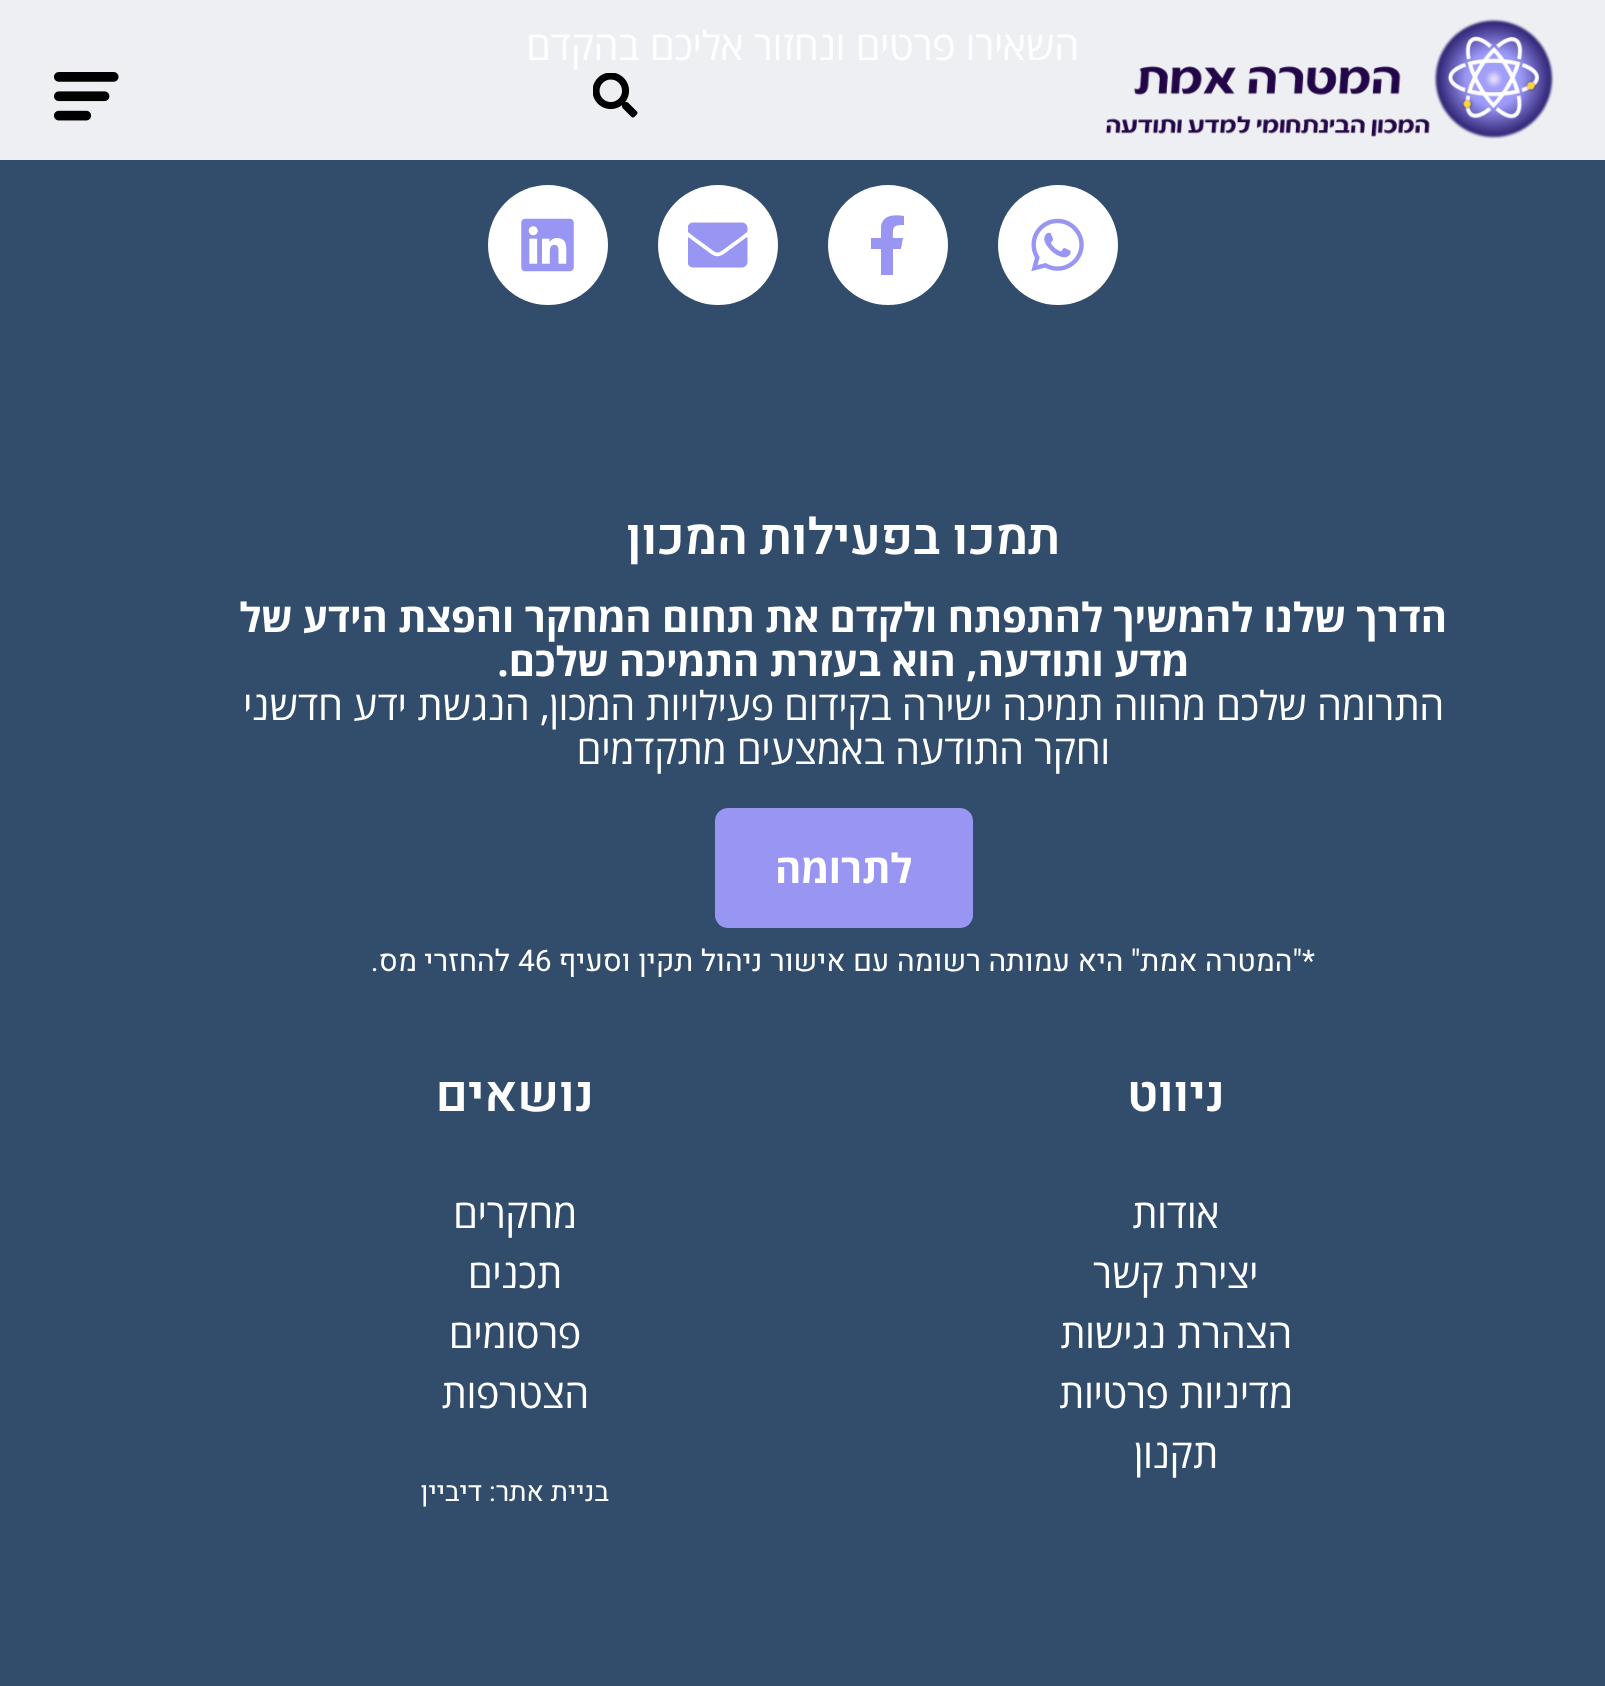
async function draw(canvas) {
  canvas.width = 1605
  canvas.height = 1686
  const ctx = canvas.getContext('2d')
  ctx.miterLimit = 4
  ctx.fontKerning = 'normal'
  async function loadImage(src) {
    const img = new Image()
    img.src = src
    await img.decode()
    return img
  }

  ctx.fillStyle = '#324c6b'
  ctx.fillRect(0, 0, 1605, 1686)
  ctx.fillStyle = '#edeff2'
  ctx.fillRect(0, 0, 1605, 160)
  ctx.drawImage(await loadImage('image0.png'), 1105, 18, 449, 121)
  ctx.drawImage(await loadImage('image1.png'), 593, 73, 45, 45)
  ctx.drawImage(await loadImage('image2.png'), 54, 72, 65, 49)
  ctx.direction = 'rtl'
  ctx.font = '40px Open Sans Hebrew'
  ctx.fillStyle = '#fff'
  ctx.fillText('השאירו פרטים ונחזור אליכם בהקדם', 1079, 60)
  ctx.beginPath()
  ctx.arc(1058, 245, 60, 0, 2 * Math.PI)
  ctx.fill()
  ctx.drawImage(await loadImage('image3.png'), 1031, 218, 53, 54)
  ctx.beginPath()
  ctx.arc(888, 245, 60, 0, 2 * Math.PI)
  ctx.fill()
  ctx.fillStyle = '#9996f3'
  ctx.beginPath()
  ctx.moveTo(901, 249)
  ctx.lineTo(903, 238)
  ctx.lineTo(893, 238)
  ctx.bezierCurveTo(893, 227, 892, 225, 904, 225)
  ctx.lineTo(904, 216)
  ctx.bezierCurveTo(894, 214, 883, 215, 881, 226)
  ctx.lineTo(881, 238)
  ctx.lineTo(871, 238)
  ctx.lineTo(871, 249)
  ctx.lineTo(881, 249)
  ctx.lineTo(881, 275)
  ctx.lineTo(893, 275)
  ctx.lineTo(893, 249)
  ctx.closePath()
  ctx.fill()
  ctx.fillStyle = '#fff'
  ctx.beginPath()
  ctx.arc(718, 245, 60, 0, 2 * Math.PI)
  ctx.fill()
  ctx.drawImage(await loadImage('image4.png'), 688, 222, 60, 46)
  ctx.beginPath()
  ctx.arc(548, 245, 60, 0, 2 * Math.PI)
  ctx.fill()
  ctx.drawImage(await loadImage('image5.png'), 521, 218, 53, 54)
  ctx.font = '600 50px Heebo'
  ctx.fillText('תמכו בפעילות המכון', 1060, 554)
  ctx.font = 'bold 40px Open Sans Hebrew'
  ctx.fillText('הדרך שלנו להמשיך להתפתח ולקדם את תחום המחקר והפצת הידע של', 1447, 632)
  ctx.fillText('מדע ותודעה, הוא בעזרת התמיכה שלכם.', 1189, 676)
  ctx.font = '40px Open Sans Hebrew'
  ctx.fillText('התרומה שלכם מהווה תמיכה ישירה בקידום פעילויות המכון, הנגשת ידע חדשני', 1444, 720)
  ctx.fillText('וחקר התודעה באמצעים מתקדמים', 1110, 764)
  ctx.fillStyle = '#9996f3'
  ctx.beginPath()
  ctx.roundRect(715, 808, 258, 120, 13)
  ctx.fill()
  ctx.font = 'bold 40px Open Sans Hebrew'
  ctx.fillStyle = '#fff'
  ctx.fillText('לתרומה', 912, 883)
  ctx.font = '30px Heebo'
  ctx.fillText('*"המטרה אמת" היא עמותה רשומה עם אישור ניהול תקין וסעיף', 1315, 971)
  ctx.direction = 'ltr'
  ctx.fillText('46', 518, 971)
  ctx.direction = 'rtl'
  ctx.fillText('להחזרי מס.', 510, 971)
  ctx.font = '600 50px Heebo'
  ctx.fillText('ניווט', 1225, 1111)
  ctx.font = '40px Open Sans Hebrew'
  ctx.fillText('אודות', 1219, 1228)
  ctx.fillText('יצירת קשר', 1258, 1288)
  ctx.fillText('הצהרת נגישות', 1292, 1348)
  ctx.fillText('מדיניות פרטיות', 1293, 1408)
  ctx.fillText('תקנון', 1218, 1468)
  ctx.font = '600 50px Heebo'
  ctx.fillText('נושאים', 594, 1111)
  ctx.font = '40px Open Sans Hebrew'
  ctx.fillText('מחקרים', 577, 1228)
  ctx.fillText('תכנים', 562, 1288)
  ctx.fillText('פרסומים', 581, 1348)
  ctx.fillText('הצטרפות', 589, 1408)
  ctx.font = '27.5px Heebo'
  ctx.fillText('בניית אתר: דיביין', 609, 1501)
}

draw(document.querySelector('canvas'))
